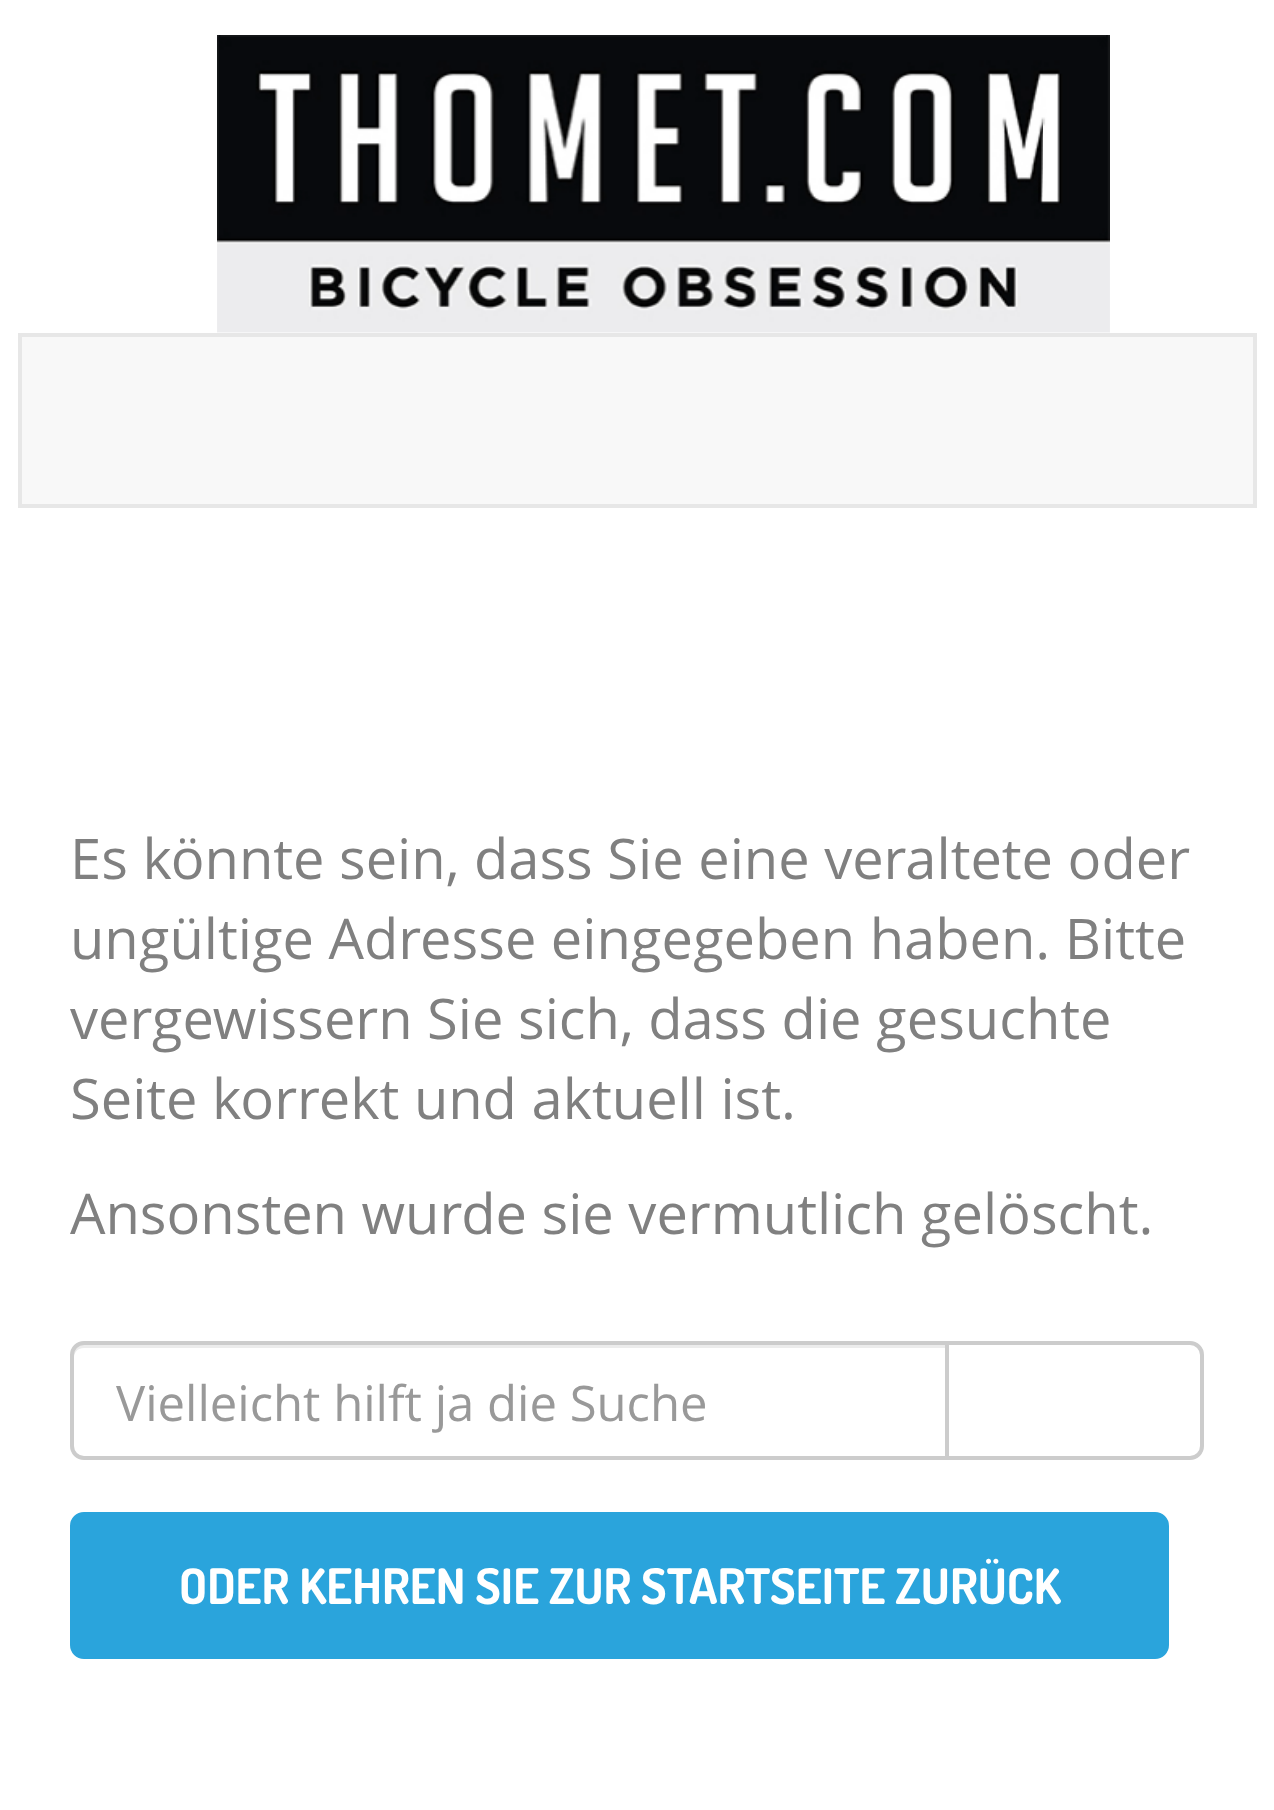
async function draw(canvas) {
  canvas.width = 1274
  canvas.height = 1810
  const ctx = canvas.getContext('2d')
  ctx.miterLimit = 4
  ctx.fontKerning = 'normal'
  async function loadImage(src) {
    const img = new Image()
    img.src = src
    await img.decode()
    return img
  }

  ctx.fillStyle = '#fff'
  ctx.fillRect(0, 0, 1274, 1810)
  ctx.drawImage(await loadImage('image0.png'), 217, 35, 893, 298)
  ctx.fillStyle = '#f8f8f8'
  ctx.beginPath()
  ctx.rect(20, 335, 1235, 171)
  ctx.fill()
  ctx.strokeStyle = '#e7e7e7'
  ctx.lineWidth = 4
  ctx.stroke()
  ctx.font = '56px Open Sans'
  ctx.fillStyle = '#808080'
  ctx.fillText('Es könnte sein, dass Sie eine veraltete oder', 70, 879)
  ctx.fillText('ungültige Adresse eingegeben haben. Bitte', 70, 959)
  ctx.fillText('vergewissern Sie sich, dass die gesuchte', 70, 1039)
  ctx.fillText('Seite korrekt und aktuell ist.', 70, 1119)
  ctx.fillText('Ansonsten wurde sie vermutlich gelöscht.', 70, 1234)
  ctx.fillStyle = '#ececec'
  ctx.beginPath()
  ctx.moveTo(84, 1348)
  ctx.lineTo(945, 1348)
  ctx.lineTo(945, 1344)
  ctx.lineTo(85, 1344)
  ctx.bezierCurveTo(79, 1344, 74, 1349, 74, 1355)
  ctx.lineTo(74, 1358)
  ctx.bezierCurveTo(74, 1352, 78, 1348, 84, 1348)
  ctx.closePath()
  ctx.fill()
  ctx.beginPath()
  ctx.roundRect(72, 1343, 875, 115, [12, 0, 0, 12])
  ctx.strokeStyle = '#ccc'
  ctx.stroke()
  ctx.font = '49px Open Sans'
  ctx.fillStyle = '#999'
  ctx.fillText('Vielleicht hilft ja die Suche', 116, 1421)
  ctx.fillStyle = '#fff'
  ctx.beginPath()
  ctx.roundRect(947, 1343, 255, 115, [0, 12, 12, 0])
  ctx.fill()
  ctx.stroke()
  ctx.fillStyle = '#2aa4dc'
  ctx.beginPath()
  ctx.roundRect(72, 1514, 1095, 143, 12)
  ctx.fill()
  ctx.strokeStyle = '#2aa4dc'
  ctx.stroke()
  ctx.font = 'bold 49px Dosis'
  ctx.fillStyle = '#fff'
  ctx.fillText('ODER KEHREN SIE ZUR STARTSEITE ZURÜCK', 179, 1604)
}

draw(document.querySelector('canvas'))
